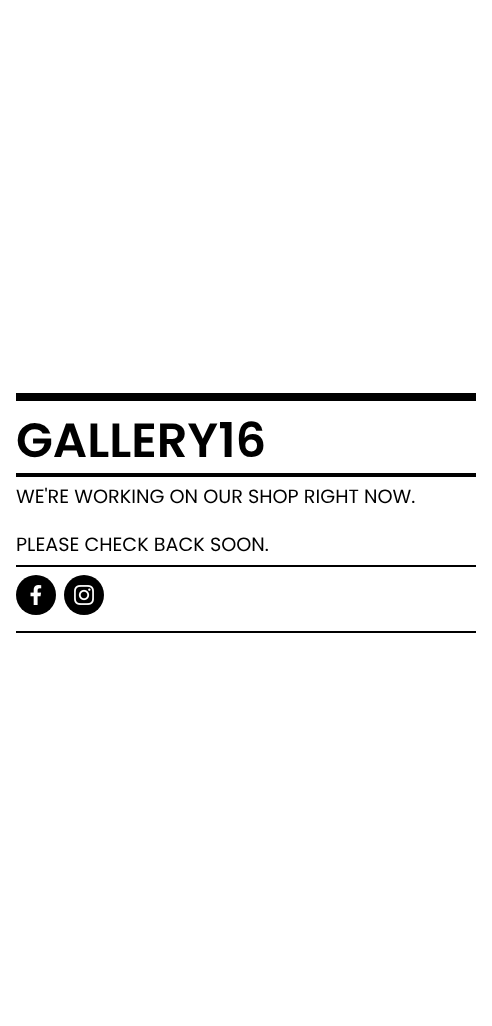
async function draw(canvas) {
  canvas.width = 492
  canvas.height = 1026
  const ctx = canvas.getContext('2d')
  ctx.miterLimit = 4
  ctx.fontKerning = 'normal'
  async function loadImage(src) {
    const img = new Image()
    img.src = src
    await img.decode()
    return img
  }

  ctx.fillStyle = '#fff'
  ctx.fillRect(0, 0, 492, 1026)
  ctx.fillStyle = '#000'
  ctx.fillRect(16, 393, 460, 8)
  ctx.fillRect(16, 631, 460, 2)
  ctx.font = '600 48px Poppins'
  ctx.fillText('GALLERY16', 16, 457)
  ctx.fillRect(16, 473, 460, 4)
  ctx.font = '19.2px Poppins'
  ctx.fillText('WE\'RE WORKING ON OUR SHOP RIGHT NOW.', 16, 503)
  ctx.fillText('PLEASE CHECK BACK SOON.', 16, 551)
  ctx.fillRect(16, 565, 460, 2)
  ctx.beginPath()
  ctx.arc(36, 595, 20, 0, 2 * Math.PI)
  ctx.fill()
  ctx.drawImage(await loadImage('image0.png'), 30, 585, 12, 20)
  ctx.beginPath()
  ctx.arc(84, 595, 20, 0, 2 * Math.PI)
  ctx.fill()
  ctx.drawImage(await loadImage('image1.png'), 74, 585, 20, 20)
}

draw(document.querySelector('canvas'))
